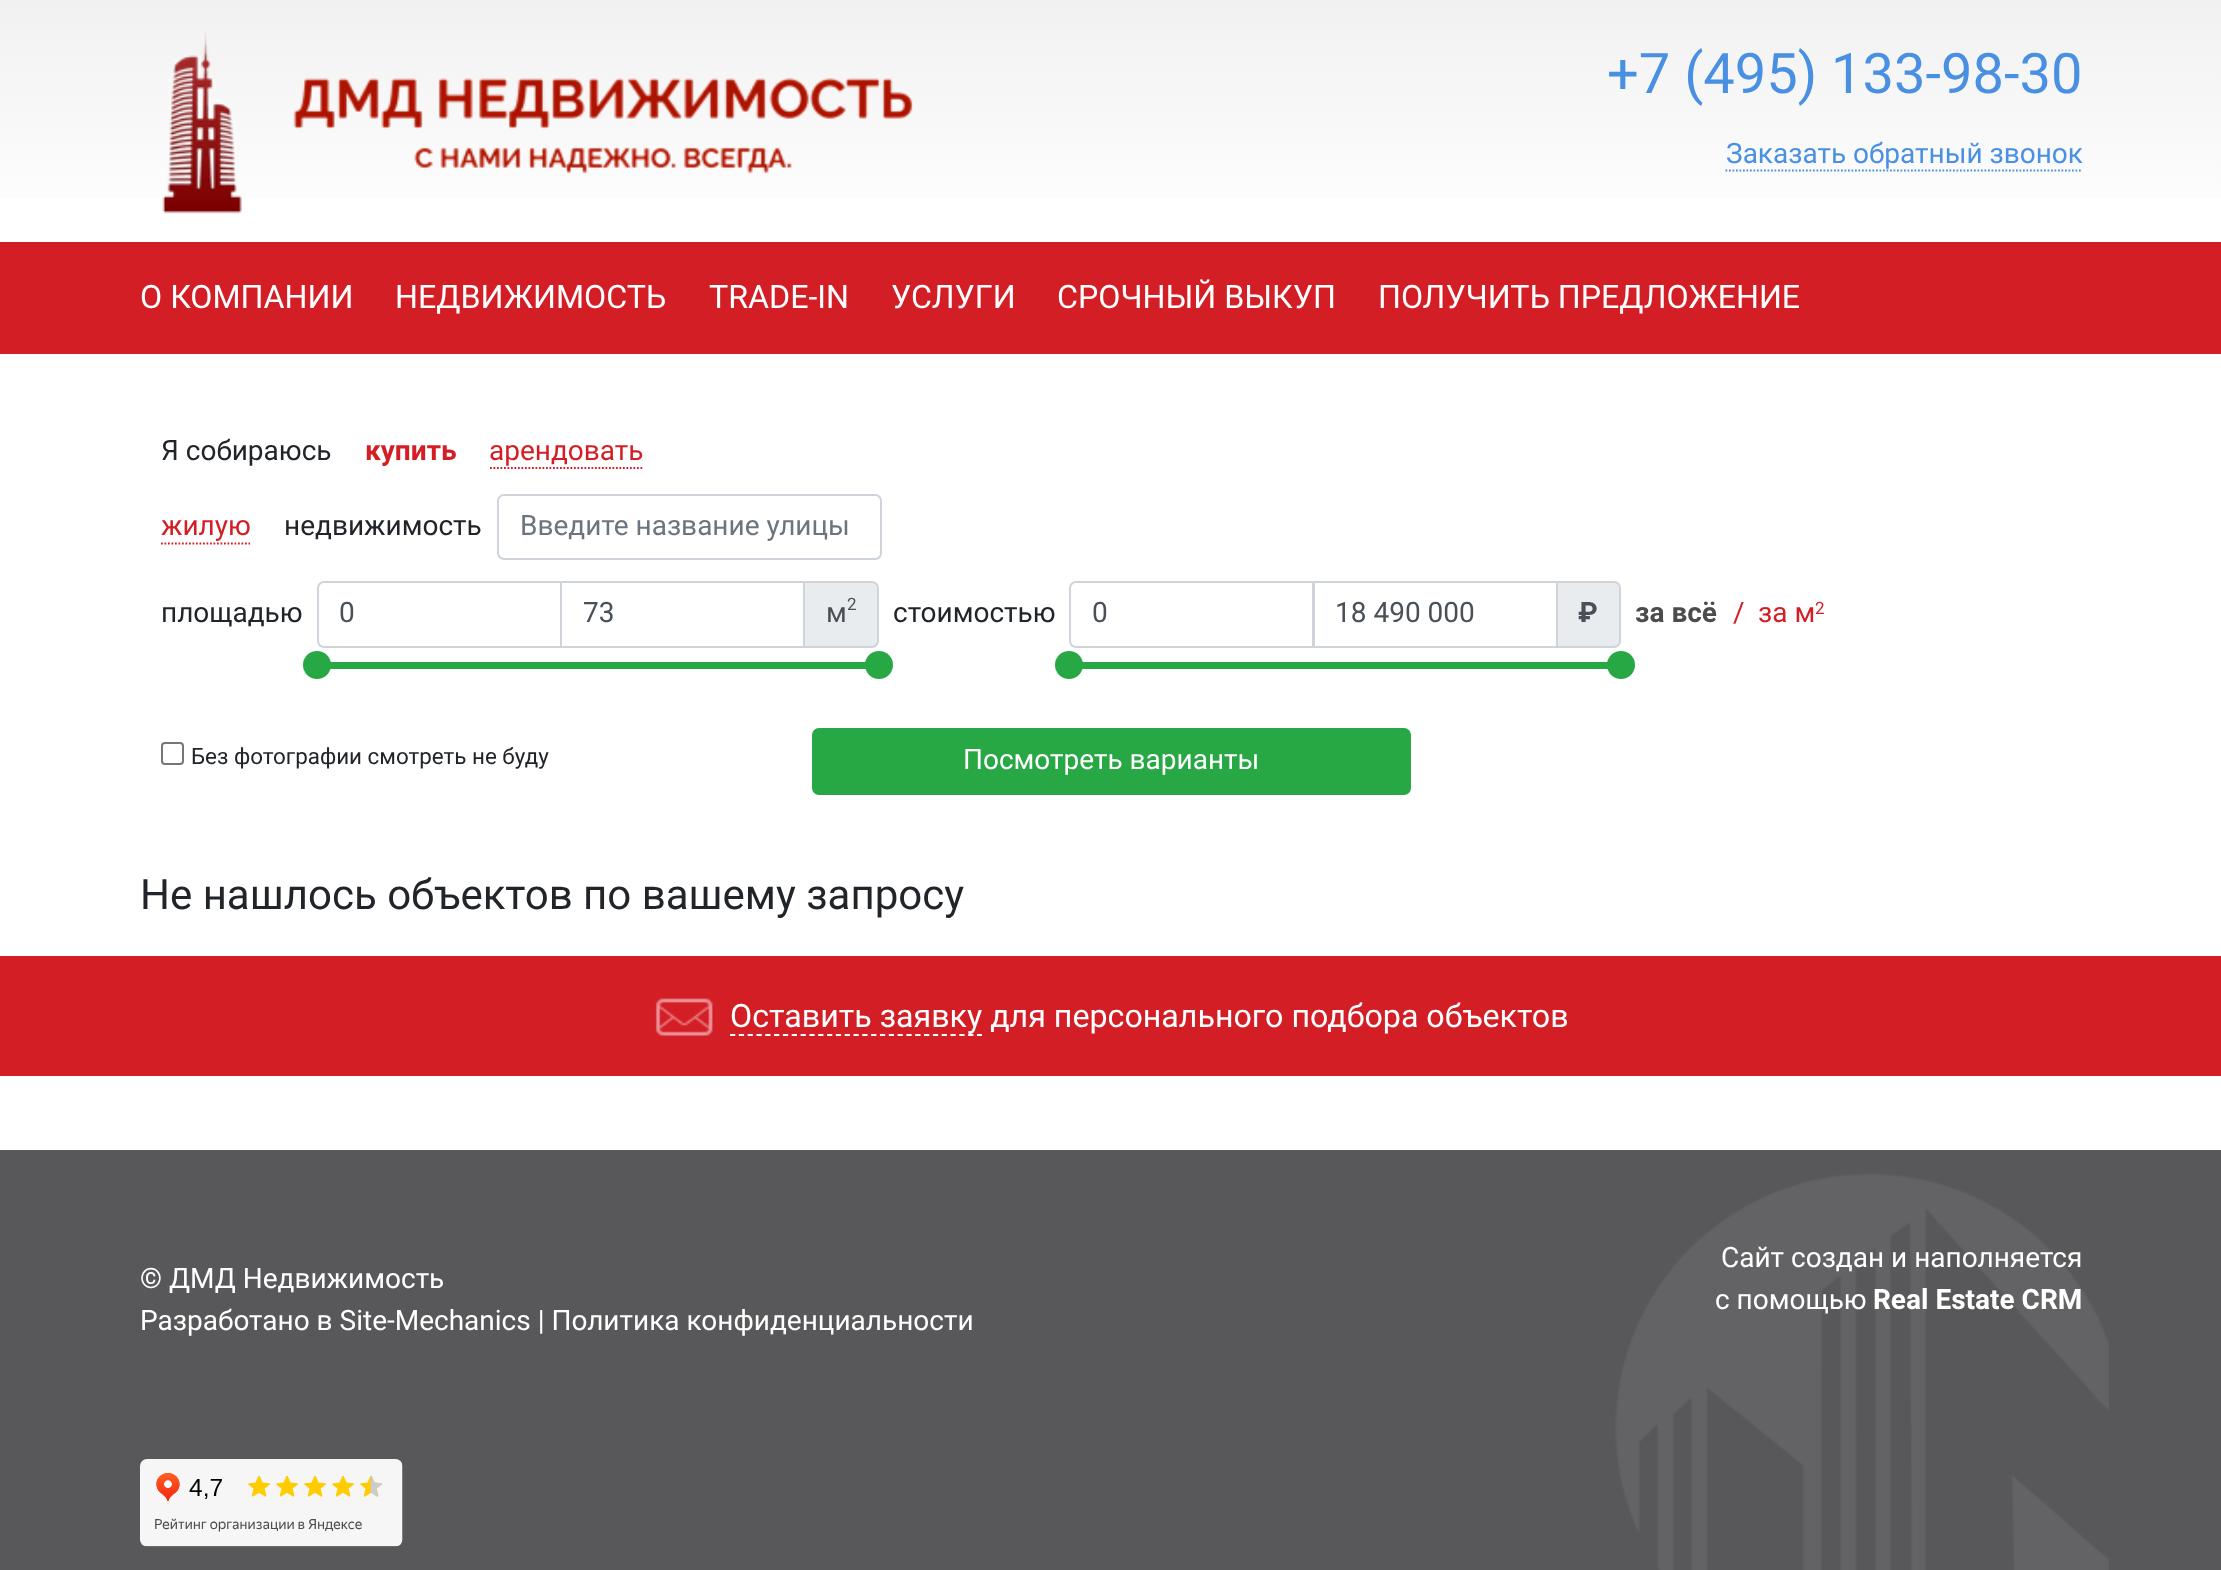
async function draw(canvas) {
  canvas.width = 2221
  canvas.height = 1570
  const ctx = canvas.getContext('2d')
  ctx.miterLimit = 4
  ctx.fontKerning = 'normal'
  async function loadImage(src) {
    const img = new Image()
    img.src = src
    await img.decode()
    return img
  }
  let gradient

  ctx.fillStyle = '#fff'
  ctx.fillRect(0, 0, 2221, 1570)
  gradient = ctx.createLinearGradient(0, -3.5, 0, 242)
  gradient.addColorStop(0, '#f1f1f1')
  gradient.addColorStop(1, '#fff')
  ctx.fillStyle = gradient
  ctx.fillRect(0, 0, 2221, 198)
  ctx.drawImage(await loadImage('image0.png'), 162, 32, 751, 182)
  ctx.font = '56px Roboto'
  ctx.fillStyle = '#4a90e2'
  ctx.fillText('+7 (495) 133-98-30', 1607, 93)
  ctx.font = '28px Roboto'
  ctx.fillText('Заказать обратный звонок', 1726, 163)
  ctx.beginPath()
  ctx.moveTo(1725.5, 170.5)
  ctx.lineTo(2082.5, 170.5)
  ctx.strokeStyle = '#4a90e2'
  ctx.lineWidth = 1.8
  ctx.setLineDash([1.75, 1.75])
  ctx.stroke()
  ctx.fillStyle = '#d41e26'
  ctx.fillRect(0, 242, 2221, 112)
  ctx.font = '32.2px Roboto'
  ctx.fillStyle = '#fff'
  ctx.fillText('О КОМПАНИИ', 140, 308)
  ctx.fillText('НЕДВИЖИМОСТЬ', 395, 308)
  ctx.fillText('TRADE-IN', 709, 308)
  ctx.fillText('УСЛУГИ', 891, 308)
  ctx.fillText('СРОЧНЫЙ ВЫКУП', 1057, 308)
  ctx.fillText('ПОЛУЧИТЬ ПРЕДЛОЖЕНИЕ', 1378, 308)
  ctx.font = '28px Roboto'
  ctx.fillStyle = '#212529'
  ctx.fillText('Я собираюсь', 161, 460)
  ctx.font = 'bold 28px Roboto'
  ctx.fillStyle = '#d41e26'
  ctx.fillText('купить', 365, 460)
  ctx.font = '28px Roboto'
  ctx.fillText('арендовать', 489, 460)
  ctx.beginPath()
  ctx.moveTo(490, 468)
  ctx.lineTo(644, 468)
  ctx.strokeStyle = '#d41e26'
  ctx.stroke()
  ctx.fillText('жилую', 161, 535)
  ctx.beginPath()
  ctx.moveTo(161, 543.5)
  ctx.lineTo(250, 543.5)
  ctx.stroke()
  ctx.fillStyle = '#212529'
  ctx.fillText('недвижимость', 284, 535)
  ctx.beginPath()
  ctx.roundRect(498, 495, 383, 64, 6)
  ctx.strokeStyle = '#ced4da'
  ctx.lineWidth = 2
  ctx.setLineDash([])
  ctx.stroke()
  ctx.fillStyle = '#6c757d'
  ctx.fillText('Введите название улицы', 520, 535)
  ctx.fillStyle = '#212529'
  ctx.fillText('площадью', 161, 622)
  ctx.beginPath()
  ctx.roundRect(318, 582, 243, 65, [6, 0, 0, 6])
  ctx.stroke()
  ctx.fillStyle = '#495057'
  ctx.fillText('0', 339, 622)
  ctx.fillStyle = '#e9ecef'
  ctx.beginPath()
  ctx.roundRect(804, 582, 74, 65, [0, 6, 6, 0])
  ctx.fill()
  ctx.stroke()
  ctx.strokeRect(561, 582, 243, 65)
  ctx.fillStyle = '#495057'
  ctx.fillText('73', 583, 622)
  ctx.font = '17px Roboto'
  ctx.fillText('2', 847, 610)
  ctx.font = '28px Roboto'
  ctx.fillText('м', 826, 622)
  ctx.fillStyle = '#28a745'
  ctx.fillRect(330, 662, 536, 7)
  ctx.beginPath()
  ctx.arc(317, 665, 14, 0, 2 * Math.PI)
  ctx.fill()
  ctx.beginPath()
  ctx.arc(879, 665, 14, 0, 2 * Math.PI)
  ctx.fill()
  ctx.fillStyle = '#212529'
  ctx.fillText('стоимостью', 893, 622)
  ctx.beginPath()
  ctx.roundRect(1070, 582, 243, 65, [6, 0, 0, 6])
  ctx.stroke()
  ctx.fillStyle = '#495057'
  ctx.fillText('0', 1092, 622)
  ctx.fillStyle = '#e9ecef'
  ctx.beginPath()
  ctx.roundRect(1557, 582, 63, 65, [0, 6, 6, 0])
  ctx.fill()
  ctx.stroke()
  ctx.strokeRect(1314, 582, 243, 65)
  ctx.fillStyle = '#495057'
  ctx.fillText('18 490 000', 1335, 622)
  ctx.font = 'bold 28px Roboto'
  ctx.fillText('₽', 1578, 622)
  ctx.fillStyle = '#28a745'
  ctx.fillRect(1082, 662, 526, 7)
  ctx.beginPath()
  ctx.arc(1069, 665, 14, 0, 2 * Math.PI)
  ctx.fill()
  ctx.beginPath()
  ctx.arc(1621, 665, 14, 0, 2 * Math.PI)
  ctx.fill()
  ctx.fillStyle = '#4c4c4c'
  ctx.fillText('за всё', 1635, 622)
  ctx.font = '28px Roboto'
  ctx.fillStyle = '#d41e26'
  ctx.fillText('/', 1733, 622)
  ctx.fillText('за м', 1758, 622)
  ctx.font = '17px Roboto'
  ctx.fillText('2', 1815, 614)
  ctx.beginPath()
  ctx.roundRect(162, 743, 21, 21, 3)
  ctx.strokeStyle = '#767676'
  ctx.stroke()
  ctx.font = '22.4px Roboto'
  ctx.fillStyle = '#212529'
  ctx.fillText('Без фотографии смотреть не буду', 191, 764)
  ctx.fillStyle = '#28a745'
  ctx.beginPath()
  ctx.roundRect(813, 729, 597, 65, 6)
  ctx.fill()
  ctx.strokeStyle = '#28a745'
  ctx.stroke()
  ctx.font = '28px Roboto'
  ctx.fillStyle = '#fff'
  ctx.fillText('Поcмотреть варианты', 963, 769)
  ctx.font = '42px Roboto'
  ctx.fillStyle = '#212529'
  ctx.fillText('Не нашлось объектов по вашему запросу', 140, 909)
  ctx.fillStyle = '#d41e26'
  ctx.fillRect(0, 956, 2221, 120)
  ctx.drawImage(await loadImage('image1.png'), 655, 998, 58, 38)
  ctx.font = '32.2px Roboto'
  ctx.fillStyle = '#fff'
  ctx.fillText('Оставить заявку для персонального подбора объектов', 730, 1027)
  ctx.beginPath()
  ctx.moveTo(730, 1035)
  ctx.lineTo(982, 1035)
  ctx.strokeStyle = '#fff'
  ctx.lineWidth = 1.8
  ctx.setLineDash([5.25, 3.57])
  ctx.stroke()
  ctx.fillStyle = '#58585a'
  ctx.fillRect(0, 1150, 2221, 420)
  ctx.drawImage(await loadImage('image2.png'), 1615, 1174, 494, 396)
  ctx.font = '28px Roboto'
  ctx.fillStyle = '#fff'
  ctx.fillText('© ДМД Недвижимость', 140, 1288)
  ctx.fillText('Разработано в Site-Mechanics | Политика конфиденциальности', 140, 1330)
  ctx.fillText('Сайт создан и наполняется', 1721, 1267)
  ctx.fillText('с помощью', 1715, 1309)
  ctx.font = 'bold 28px Roboto'
  ctx.fillText('Real Estate CRM', 1873, 1309)
  ctx.drawImage(await loadImage('image3.png'), 140, 1459, 263, 88)
}

draw(document.querySelector('canvas'))
